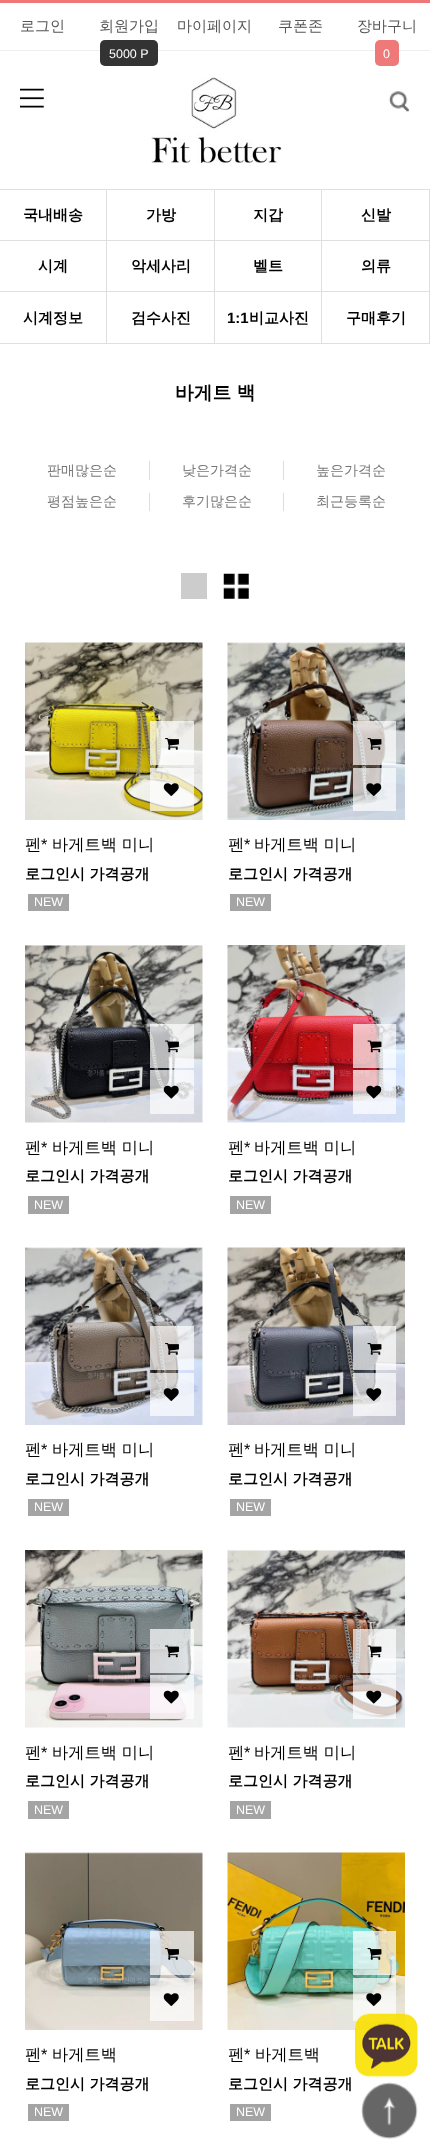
async function draw(canvas) {
  canvas.width = 430
  canvas.height = 2151
  const ctx = canvas.getContext('2d')
  ctx.miterLimit = 4
  ctx.fontKerning = 'normal'
  async function loadImage(src) {
    const img = new Image()
    img.src = src
    await img.decode()
    return img
  }

  ctx.fillStyle = '#fff'
  ctx.fillRect(0, 0, 430, 2151)
  ctx.fillStyle = '#ef7777'
  ctx.fillRect(0, 0, 430, 3)
  ctx.fillStyle = '#eee'
  ctx.fillRect(0, 50, 430, 1)
  ctx.font = '500 15px WenQuanYi Zen Hei'
  ctx.fillStyle = '#555'
  ctx.fillText('로그인', 20, 31)
  ctx.fillText('회원가입', 99, 31)
  ctx.fillStyle = '#333'
  ctx.beginPath()
  ctx.roundRect(100, 40, 58, 26, 5)
  ctx.fill()
  ctx.font = '12.5px Liberation Sans'
  ctx.fillStyle = '#fff'
  ctx.fillText('5000 P', 109, 58)
  ctx.font = '500 15px WenQuanYi Zen Hei'
  ctx.fillStyle = '#555'
  ctx.fillText('마이페이지', 177, 31)
  ctx.fillText('쿠폰존', 278, 31)
  ctx.fillText('장바구니', 357, 31)
  ctx.fillStyle = '#ef7878'
  ctx.beginPath()
  ctx.roundRect(375, 40, 24, 26, 5)
  ctx.fill()
  ctx.font = '12.5px Liberation Sans'
  ctx.fillStyle = '#fff'
  ctx.fillText('0', 383, 58)
  ctx.drawImage(await loadImage('image0.png'), 20, 88, 24, 20)
  ctx.drawImage(await loadImage('image1.png'), 151, 77, 131, 86)
  ctx.drawImage(await loadImage('image2.png'), 388, 91, 21, 21)
  ctx.fillStyle = '#dfdfdf'
  ctx.fillRect(0, 189, 430, 1)
  ctx.fillRect(106, 190, 1, 154)
  ctx.fillRect(0, 240, 108, 1)
  ctx.font = 'bold 15px WenQuanYi Zen Hei'
  ctx.fillStyle = '#000'
  ctx.fillText('국내배송', 23, 220)
  ctx.fillStyle = '#dfdfdf'
  ctx.fillRect(214, 190, 1, 154)
  ctx.fillRect(108, 240, 107, 1)
  ctx.fillStyle = '#000'
  ctx.fillText('가방', 146, 220)
  ctx.fillStyle = '#dfdfdf'
  ctx.fillRect(321, 190, 1, 154)
  ctx.fillRect(215, 240, 108, 1)
  ctx.fillStyle = '#000'
  ctx.fillText('지갑', 253, 220)
  ctx.fillStyle = '#dfdfdf'
  ctx.fillRect(429, 190, 1, 154)
  ctx.fillRect(323, 240, 107, 1)
  ctx.fillStyle = '#000'
  ctx.fillText('신발', 361, 220)
  ctx.fillStyle = '#dfdfdf'
  ctx.fillRect(0, 291, 430, 1)
  ctx.fillStyle = '#000'
  ctx.fillText('시계', 38, 271)
  ctx.fillText('악세사리', 131, 271)
  ctx.fillText('벨트', 253, 271)
  ctx.fillText('의류', 361, 271)
  ctx.fillStyle = '#dfdfdf'
  ctx.fillRect(0, 343, 430, 1)
  ctx.fillStyle = '#000'
  ctx.fillText('시계정보', 23, 323)
  ctx.fillText('검수사진', 131, 323)
  ctx.font = 'bold 15px Liberation Sans'
  ctx.fillText('1:1', 227, 323)
  ctx.font = 'bold 15px WenQuanYi Zen Hei'
  ctx.fillText('비교사진', 249, 323)
  ctx.fillText('구매후기', 346, 323)
  ctx.font = 'bold 18.75px WenQuanYi Zen Hei'
  ctx.fillText('바게트 백', 175, 399)
  ctx.font = '500 14px WenQuanYi Zen Hei'
  ctx.fillStyle = '#777'
  ctx.fillText('판매많은순', 47, 475)
  ctx.fillStyle = '#ddd'
  ctx.fillRect(149, 461, 1, 19)
  ctx.fillStyle = '#777'
  ctx.fillText('낮은가격순', 182, 475)
  ctx.fillStyle = '#ddd'
  ctx.fillRect(283, 461, 1, 19)
  ctx.fillStyle = '#777'
  ctx.fillText('높은가격순', 316, 475)
  ctx.fillText('평점높은순', 47, 506)
  ctx.fillStyle = '#ddd'
  ctx.fillRect(149, 493, 1, 18)
  ctx.fillStyle = '#777'
  ctx.fillText('후기많은순', 182, 506)
  ctx.fillStyle = '#ddd'
  ctx.fillRect(283, 493, 1, 18)
  ctx.fillStyle = '#777'
  ctx.fillText('최근등록순', 316, 506)
  ctx.fillStyle = '#ccc'
  ctx.fillRect(181, 573, 26, 26)
  ctx.drawImage(await loadImage('image3.png'), 223, 573, 26, 26)
  ctx.drawImage(await loadImage('image4.png'), 25, 642, 178, 178)
  ctx.fillStyle = '#ffffffb3'
  ctx.fillRect(150, 721, 44, 44)
  ctx.drawImage(await loadImage('image5.png'), 165, 738, 14, 12)
  ctx.fillRect(150, 768, 44, 43)
  ctx.drawImage(await loadImage('image6.png'), 163, 783, 16, 13)
  ctx.font = '500 16.25px WenQuanYi Zen Hei'
  ctx.fillStyle = '#000'
  ctx.fillText('펜', 25, 850)
  ctx.font = '16.25px Liberation Sans'
  ctx.fillText('*', 41, 850)
  ctx.font = '500 16.25px WenQuanYi Zen Hei'
  ctx.fillText('바게트백 미니', 52, 850)
  ctx.font = 'bold 15px WenQuanYi Zen Hei'
  ctx.fillText('로그인시 가격공개', 25, 879)
  ctx.fillStyle = '#a4a4a4'
  ctx.fillRect(28, 894, 41, 17)
  ctx.font = '12.5px Liberation Sans'
  ctx.fillStyle = '#fff'
  ctx.fillText('NEW', 34, 906)
  ctx.drawImage(await loadImage('image7.png'), 227, 642, 178, 178)
  ctx.fillStyle = '#ffffffb3'
  ctx.fillRect(353, 721, 43, 44)
  ctx.drawImage(await loadImage('image8.png'), 367, 738, 15, 12)
  ctx.fillRect(353, 768, 43, 43)
  ctx.drawImage(await loadImage('image9.png'), 366, 783, 16, 13)
  ctx.font = '500 16.25px WenQuanYi Zen Hei'
  ctx.fillStyle = '#000'
  ctx.fillText('펜', 228, 850)
  ctx.font = '16.25px Liberation Sans'
  ctx.fillText('*', 244, 850)
  ctx.font = '500 16.25px WenQuanYi Zen Hei'
  ctx.fillText('바게트백 미니', 254, 850)
  ctx.font = 'bold 15px WenQuanYi Zen Hei'
  ctx.fillText('로그인시 가격공개', 228, 879)
  ctx.fillStyle = '#a4a4a4'
  ctx.fillRect(230, 894, 41, 17)
  ctx.font = '12.5px Liberation Sans'
  ctx.fillStyle = '#fff'
  ctx.fillText('NEW', 236, 906)
  ctx.drawImage(await loadImage('image10.png'), 25, 945, 178, 178)
  ctx.fillStyle = '#ffffffb3'
  ctx.fillRect(150, 1024, 44, 44)
  ctx.drawImage(await loadImage('image11.png'), 165, 1040, 14, 13)
  ctx.fillRect(150, 1070, 44, 44)
  ctx.drawImage(await loadImage('image12.png'), 163, 1085, 16, 14)
  ctx.font = '500 16.25px WenQuanYi Zen Hei'
  ctx.fillStyle = '#000'
  ctx.fillText('펜', 25, 1153)
  ctx.font = '16.25px Liberation Sans'
  ctx.fillText('*', 41, 1153)
  ctx.font = '500 16.25px WenQuanYi Zen Hei'
  ctx.fillText('바게트백 미니', 52, 1153)
  ctx.font = 'bold 15px WenQuanYi Zen Hei'
  ctx.fillText('로그인시 가격공개', 25, 1181)
  ctx.fillStyle = '#a4a4a4'
  ctx.fillRect(28, 1196, 41, 18)
  ctx.font = '12.5px Liberation Sans'
  ctx.fillStyle = '#fff'
  ctx.fillText('NEW', 34, 1209)
  ctx.drawImage(await loadImage('image13.png'), 227, 945, 178, 178)
  ctx.fillStyle = '#ffffffb3'
  ctx.fillRect(353, 1024, 43, 44)
  ctx.drawImage(await loadImage('image14.png'), 367, 1040, 15, 13)
  ctx.fillRect(353, 1070, 43, 44)
  ctx.drawImage(await loadImage('image15.png'), 366, 1085, 16, 14)
  ctx.font = '500 16.25px WenQuanYi Zen Hei'
  ctx.fillStyle = '#000'
  ctx.fillText('펜', 228, 1153)
  ctx.font = '16.25px Liberation Sans'
  ctx.fillText('*', 244, 1153)
  ctx.font = '500 16.25px WenQuanYi Zen Hei'
  ctx.fillText('바게트백 미니', 254, 1153)
  ctx.font = 'bold 15px WenQuanYi Zen Hei'
  ctx.fillText('로그인시 가격공개', 228, 1181)
  ctx.fillStyle = '#a4a4a4'
  ctx.fillRect(230, 1196, 41, 18)
  ctx.font = '12.5px Liberation Sans'
  ctx.fillStyle = '#fff'
  ctx.fillText('NEW', 236, 1209)
  ctx.drawImage(await loadImage('image16.png'), 25, 1247, 178, 178)
  ctx.fillStyle = '#ffffffb3'
  ctx.fillRect(150, 1326, 44, 44)
  ctx.drawImage(await loadImage('image17.png'), 165, 1343, 14, 12)
  ctx.fillRect(150, 1373, 44, 43)
  ctx.drawImage(await loadImage('image18.png'), 163, 1388, 16, 13)
  ctx.font = '500 16.25px WenQuanYi Zen Hei'
  ctx.fillStyle = '#000'
  ctx.fillText('펜', 25, 1455)
  ctx.font = '16.25px Liberation Sans'
  ctx.fillText('*', 41, 1455)
  ctx.font = '500 16.25px WenQuanYi Zen Hei'
  ctx.fillText('바게트백 미니', 52, 1455)
  ctx.font = 'bold 15px WenQuanYi Zen Hei'
  ctx.fillText('로그인시 가격공개', 25, 1484)
  ctx.fillStyle = '#a4a4a4'
  ctx.fillRect(28, 1499, 41, 17)
  ctx.font = '12.5px Liberation Sans'
  ctx.fillStyle = '#fff'
  ctx.fillText('NEW', 34, 1511)
  ctx.drawImage(await loadImage('image19.png'), 227, 1247, 178, 178)
  ctx.fillStyle = '#ffffffb3'
  ctx.fillRect(353, 1326, 43, 44)
  ctx.drawImage(await loadImage('image20.png'), 367, 1343, 15, 12)
  ctx.fillRect(353, 1373, 43, 43)
  ctx.drawImage(await loadImage('image21.png'), 366, 1388, 16, 13)
  ctx.font = '500 16.25px WenQuanYi Zen Hei'
  ctx.fillStyle = '#000'
  ctx.fillText('펜', 228, 1455)
  ctx.font = '16.25px Liberation Sans'
  ctx.fillText('*', 244, 1455)
  ctx.font = '500 16.25px WenQuanYi Zen Hei'
  ctx.fillText('바게트백 미니', 254, 1455)
  ctx.font = 'bold 15px WenQuanYi Zen Hei'
  ctx.fillText('로그인시 가격공개', 228, 1484)
  ctx.fillStyle = '#a4a4a4'
  ctx.fillRect(230, 1499, 41, 17)
  ctx.font = '12.5px Liberation Sans'
  ctx.fillStyle = '#fff'
  ctx.fillText('NEW', 236, 1511)
  ctx.drawImage(await loadImage('image22.png'), 25, 1550, 178, 178)
  ctx.fillStyle = '#ffffffb3'
  ctx.fillRect(150, 1629, 44, 44)
  ctx.drawImage(await loadImage('image23.png'), 165, 1645, 14, 13)
  ctx.fillRect(150, 1675, 44, 44)
  ctx.drawImage(await loadImage('image24.png'), 163, 1690, 16, 14)
  ctx.font = '500 16.25px WenQuanYi Zen Hei'
  ctx.fillStyle = '#000'
  ctx.fillText('펜', 25, 1758)
  ctx.font = '16.25px Liberation Sans'
  ctx.fillText('*', 41, 1758)
  ctx.font = '500 16.25px WenQuanYi Zen Hei'
  ctx.fillText('바게트백 미니', 52, 1758)
  ctx.font = 'bold 15px WenQuanYi Zen Hei'
  ctx.fillText('로그인시 가격공개', 25, 1786)
  ctx.fillStyle = '#a4a4a4'
  ctx.fillRect(28, 1801, 41, 18)
  ctx.font = '12.5px Liberation Sans'
  ctx.fillStyle = '#fff'
  ctx.fillText('NEW', 34, 1814)
  ctx.drawImage(await loadImage('image25.png'), 227, 1550, 178, 178)
  ctx.fillStyle = '#ffffffb3'
  ctx.fillRect(353, 1629, 43, 44)
  ctx.drawImage(await loadImage('image26.png'), 367, 1645, 15, 13)
  ctx.fillRect(353, 1675, 43, 44)
  ctx.drawImage(await loadImage('image27.png'), 366, 1690, 16, 14)
  ctx.font = '500 16.25px WenQuanYi Zen Hei'
  ctx.fillStyle = '#000'
  ctx.fillText('펜', 228, 1758)
  ctx.font = '16.25px Liberation Sans'
  ctx.fillText('*', 244, 1758)
  ctx.font = '500 16.25px WenQuanYi Zen Hei'
  ctx.fillText('바게트백 미니', 254, 1758)
  ctx.font = 'bold 15px WenQuanYi Zen Hei'
  ctx.fillText('로그인시 가격공개', 228, 1786)
  ctx.fillStyle = '#a4a4a4'
  ctx.fillRect(230, 1801, 41, 18)
  ctx.font = '12.5px Liberation Sans'
  ctx.fillStyle = '#fff'
  ctx.fillText('NEW', 236, 1814)
  ctx.drawImage(await loadImage('image28.png'), 25, 1852, 178, 178)
  ctx.fillStyle = '#ffffffb3'
  ctx.fillRect(150, 1931, 44, 44)
  ctx.drawImage(await loadImage('image29.png'), 165, 1948, 14, 12)
  ctx.fillRect(150, 1978, 44, 43)
  ctx.drawImage(await loadImage('image30.png'), 163, 1993, 16, 13)
  ctx.font = '500 16.25px WenQuanYi Zen Hei'
  ctx.fillStyle = '#000'
  ctx.fillText('펜', 25, 2060)
  ctx.font = '16.25px Liberation Sans'
  ctx.fillText('*', 41, 2060)
  ctx.font = '500 16.25px WenQuanYi Zen Hei'
  ctx.fillText('바게트백', 52, 2060)
  ctx.font = 'bold 15px WenQuanYi Zen Hei'
  ctx.fillText('로그인시 가격공개', 25, 2089)
  ctx.fillStyle = '#a4a4a4'
  ctx.fillRect(28, 2104, 41, 17)
  ctx.font = '12.5px Liberation Sans'
  ctx.fillStyle = '#fff'
  ctx.fillText('NEW', 34, 2116)
  ctx.drawImage(await loadImage('image31.png'), 227, 1852, 178, 178)
  ctx.fillStyle = '#ffffffb3'
  ctx.fillRect(353, 1931, 43, 44)
  ctx.drawImage(await loadImage('image32.png'), 367, 1948, 15, 12)
  ctx.fillRect(353, 1978, 43, 43)
  ctx.drawImage(await loadImage('image33.png'), 366, 1993, 16, 13)
  ctx.font = '500 16.25px WenQuanYi Zen Hei'
  ctx.fillStyle = '#000'
  ctx.fillText('펜', 228, 2060)
  ctx.font = '16.25px Liberation Sans'
  ctx.fillText('*', 244, 2060)
  ctx.font = '500 16.25px WenQuanYi Zen Hei'
  ctx.fillText('바게트백', 255, 2060)
  ctx.font = 'bold 15px WenQuanYi Zen Hei'
  ctx.fillText('로그인시 가격공개', 228, 2089)
  ctx.fillStyle = '#a4a4a4'
  ctx.fillRect(230, 2104, 41, 17)
  ctx.font = '12.5px Liberation Sans'
  ctx.fillStyle = '#fff'
  ctx.fillText('NEW', 236, 2116)
  ctx.drawImage(await loadImage('image34.png'), 355, 2013, 63, 64)
  ctx.drawImage(await loadImage('image35.png'), 361, 2082, 57, 57)
}

draw(document.querySelector('canvas'))
